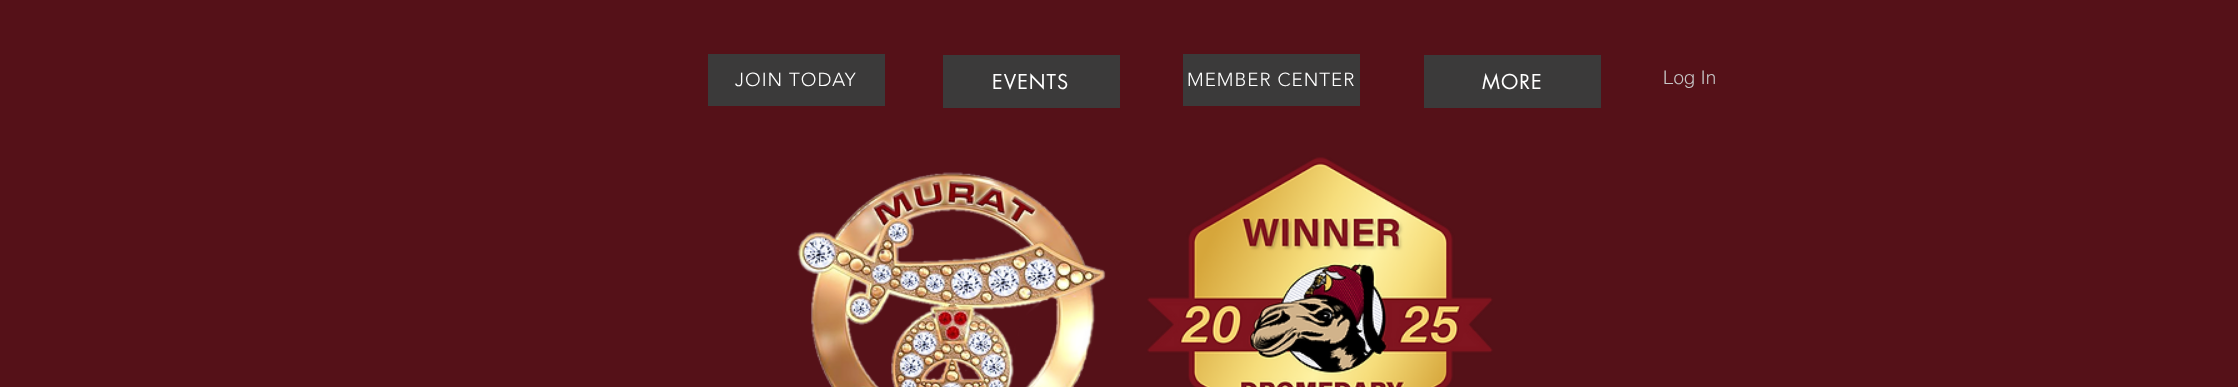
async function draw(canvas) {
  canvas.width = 2238
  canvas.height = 387
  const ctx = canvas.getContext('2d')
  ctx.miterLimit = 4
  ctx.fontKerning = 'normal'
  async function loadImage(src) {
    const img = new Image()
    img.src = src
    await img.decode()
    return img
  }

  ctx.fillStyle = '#551118'
  ctx.fillRect(0, 0, 2238, 387)
  ctx.fillStyle = '#3b3a3a'
  ctx.fillRect(708, 54, 177, 52)
  ctx.letterSpacing = '1px'
  ctx.font = '300 18.75px "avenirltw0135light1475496"'
  ctx.fillStyle = '#fff'
  ctx.fillText('JOIN TODAY', 735, 86)
  ctx.fillStyle = '#3b3a3a'
  ctx.fillRect(943, 55, 177, 53)
  ctx.font = '20px futura'
  ctx.fillStyle = '#fff'
  ctx.fillText('EVENTS', 992, 89)
  ctx.fillStyle = '#3b3a3a'
  ctx.fillRect(1183, 54, 177, 52)
  ctx.font = '300 18.75px "avenirltw0135light1475496"'
  ctx.fillStyle = '#fff'
  ctx.fillText('MEMBER CENTER', 1187, 86)
  ctx.fillStyle = '#3b3a3a'
  ctx.fillRect(1424, 55, 177, 53)
  ctx.font = '20px futura'
  ctx.fillStyle = '#fff'
  ctx.fillText('MORE', 1482, 89)
  ctx.letterSpacing = '0px'
  ctx.font = '300 18.75px helvetica'
  ctx.fillStyle = '#c6c6c6'
  ctx.fillText('Log In', 1663, 84)
  ctx.drawImage(await loadImage('image0.png'), 797, 172, 309, 215)
  ctx.drawImage(await loadImage('image1.png'), 1147, 157, 346, 230)
}

draw(document.querySelector('canvas'))
